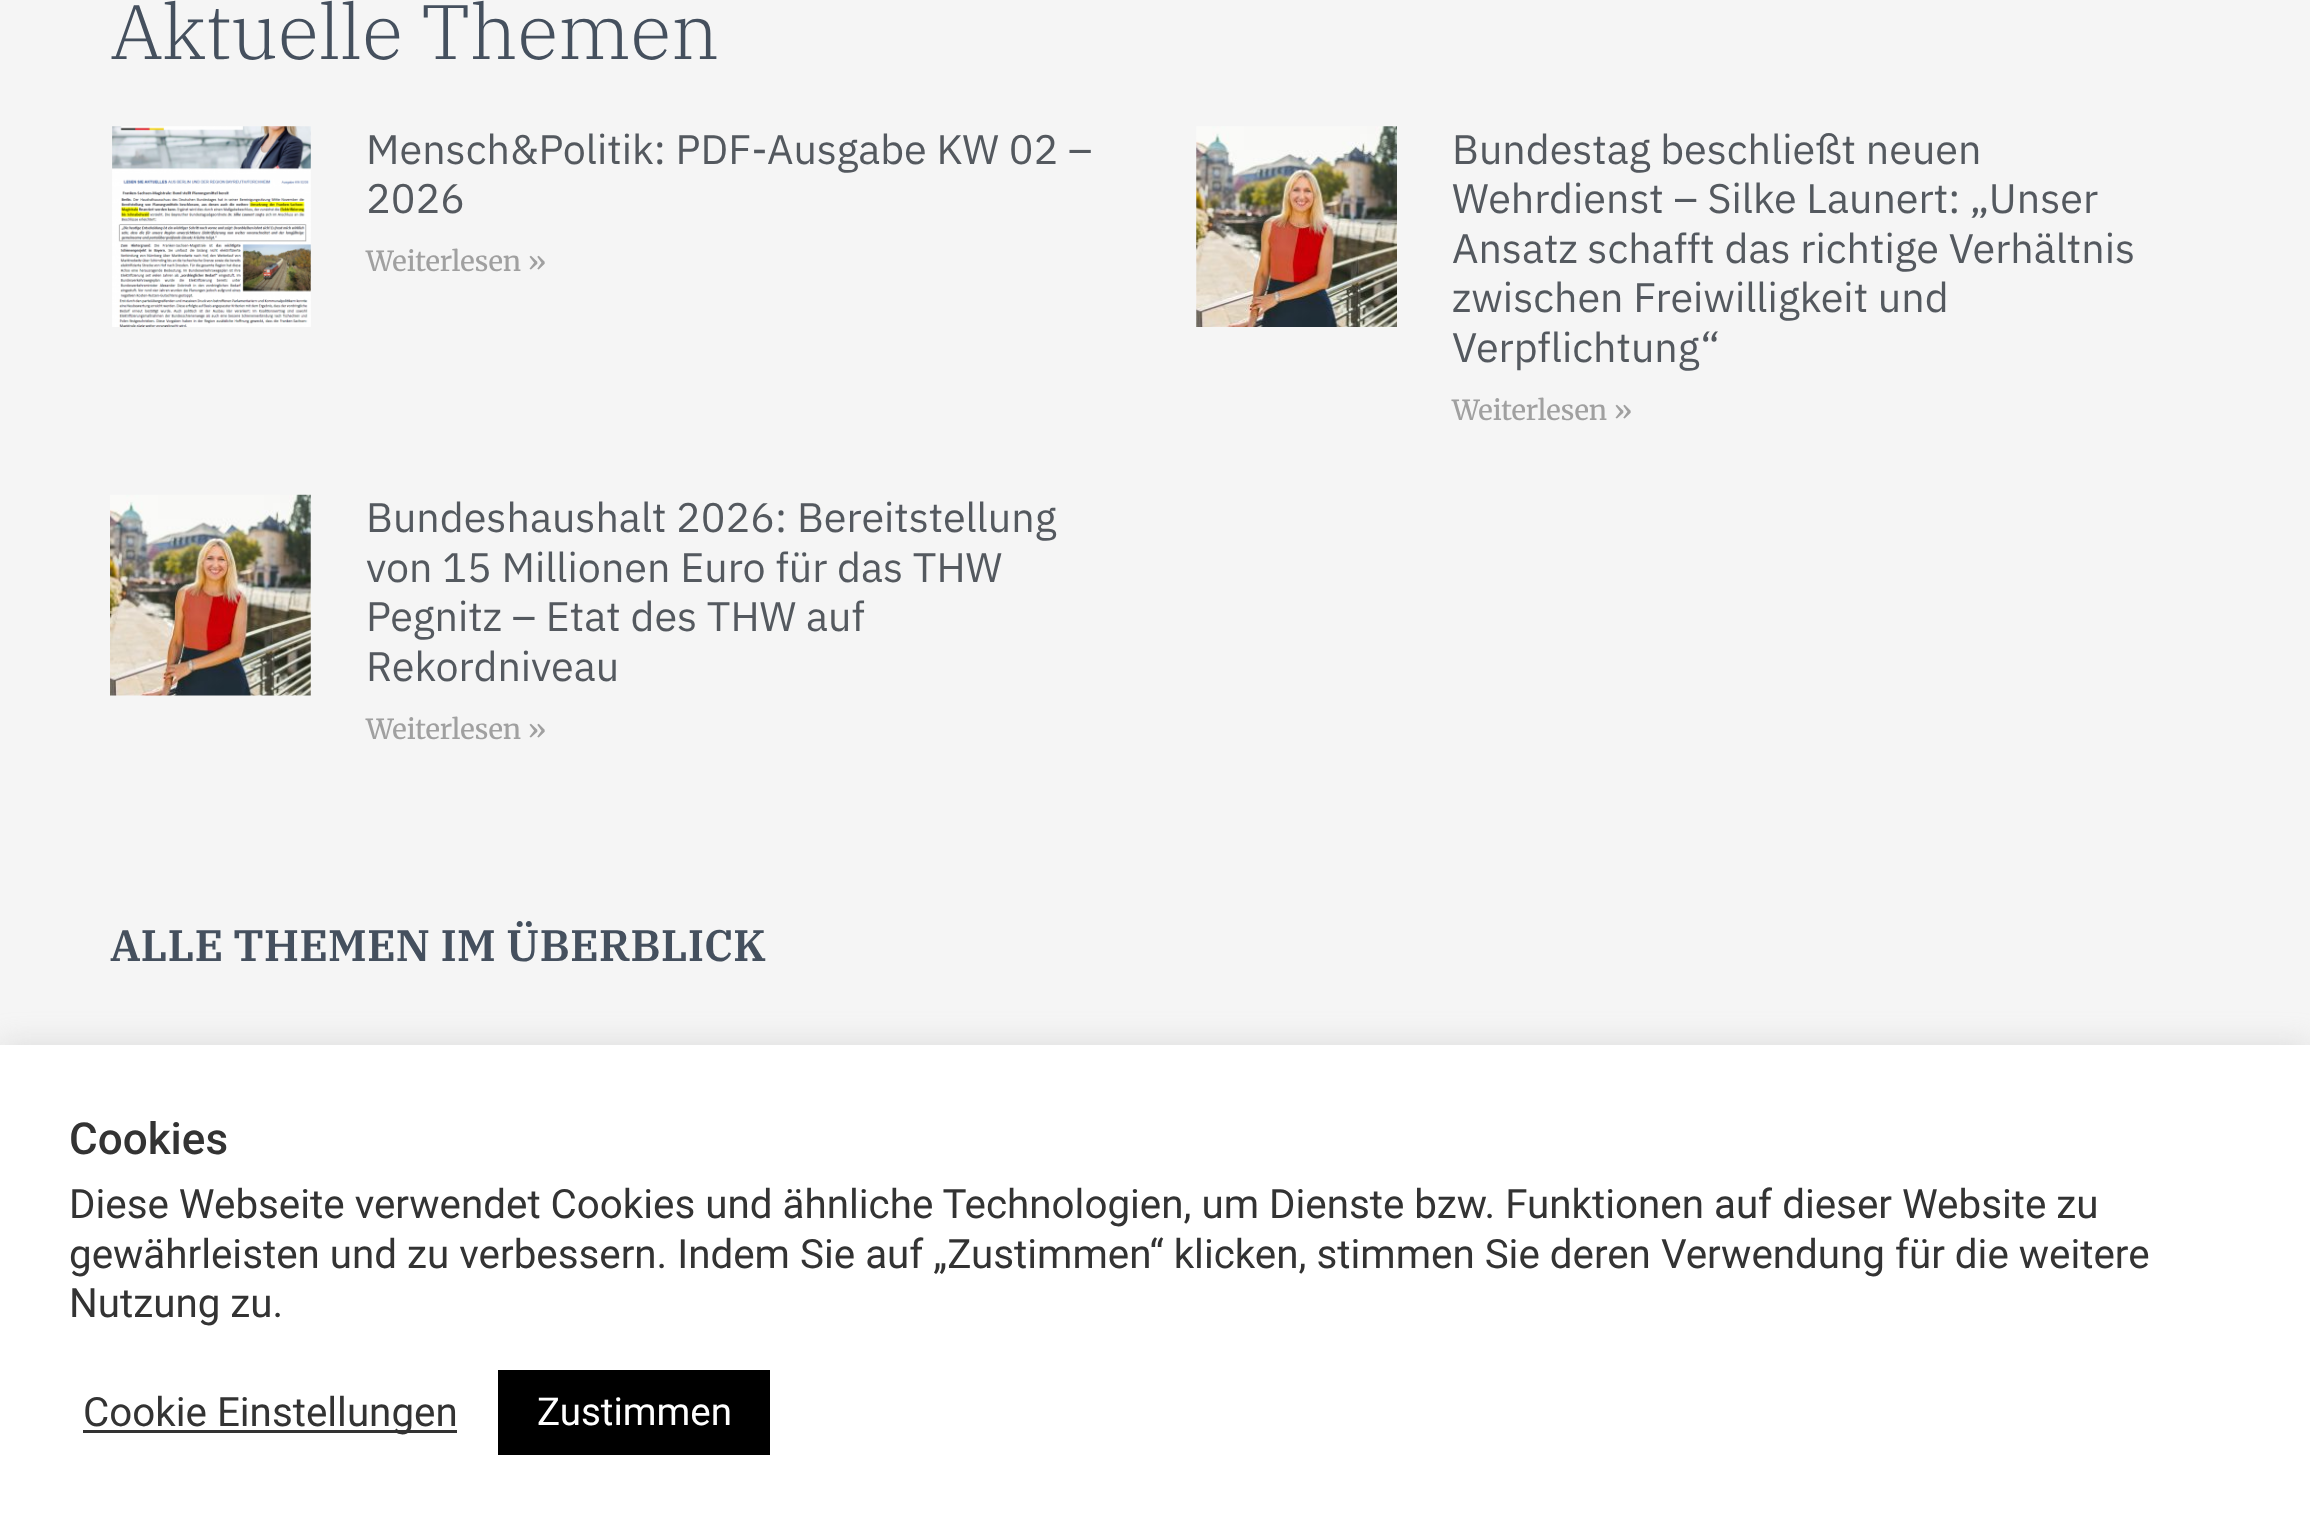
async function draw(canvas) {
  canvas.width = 2310
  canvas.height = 1536
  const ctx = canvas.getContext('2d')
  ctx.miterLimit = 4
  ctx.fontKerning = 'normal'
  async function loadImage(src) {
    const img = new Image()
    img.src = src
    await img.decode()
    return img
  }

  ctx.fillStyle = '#f5f5f5'
  ctx.fillRect(0, 0, 2310, 1536)
  ctx.font = '300 77px IBM Plex Serif'
  ctx.fillStyle = '#45505e'
  ctx.fillText('Aktuelle Themen', 110, 59)
  ctx.drawImage(await loadImage('image0.png'), 112, 126, 199, 201)
  ctx.font = '41.25px IBM Plex Sans'
  ctx.fillStyle = '#54595f'
  ctx.fillText('Mensch&Politik: PDF-Ausgabe KW 02 –', 366, 164)
  ctx.fillText('2026', 366, 213)
  ctx.font = '500 27.5px Merriweather'
  ctx.fillStyle = '#a0a0a0'
  ctx.fillText('Weiterlesen »', 366, 271)
  ctx.drawImage(await loadImage('image1.png'), 1196, 126, 201, 201)
  ctx.font = '41.25px IBM Plex Sans'
  ctx.fillStyle = '#54595f'
  ctx.fillText('Bundestag beschließt neuen', 1452, 164)
  ctx.fillText('Wehrdienst – Silke Launert: „Unser', 1452, 213)
  ctx.fillText('Ansatz schafft das richtige Verhältnis', 1452, 263)
  ctx.fillText('zwischen Freiwilligkeit und', 1452, 312)
  ctx.fillText('Verpflichtung“', 1452, 362)
  ctx.font = '500 27.5px Merriweather'
  ctx.fillStyle = '#a0a0a0'
  ctx.fillText('Weiterlesen »', 1452, 420)
  ctx.drawImage(await loadImage('image2.png'), 110, 494, 201, 202)
  ctx.font = '41.25px IBM Plex Sans'
  ctx.fillStyle = '#54595f'
  ctx.fillText('Bundeshaushalt 2026: Bereitstellung', 366, 532)
  ctx.fillText('von 15 Millionen Euro für das THW', 366, 582)
  ctx.fillText('Pegnitz – Etat des THW auf', 366, 631)
  ctx.fillText('Rekordniveau', 366, 681)
  ctx.font = '500 27.5px Merriweather'
  ctx.fillStyle = '#a0a0a0'
  ctx.fillText('Weiterlesen »', 366, 739)
  ctx.font = '600 44px IBM Plex Serif'
  ctx.fillStyle = '#45505e'
  ctx.fillText('ALLE THEMEN IM ÜBERBLICK', 110, 961)
  ctx.fillStyle = '#acabab4d'
  ctx.filter = 'blur(14px)'
  ctx.beginPath()
  ctx.rect(0, 1042, 2310, 493)
  ctx.fill()
  ctx.filter = 'none'
  ctx.fillStyle = '#fff'
  ctx.fillRect(0, 1045, 2310, 491)
  ctx.font = '500 44px Roboto'
  ctx.fillStyle = '#333'
  ctx.fillText('Cookies', 69, 1154)
  ctx.font = '40.33px Roboto'
  ctx.fillText('Diese Webseite verwendet Cookies und ähnliche Technologien, um Dienste bzw. Funktionen auf dieser Website zu', 69, 1218)
  ctx.fillText('gewährleisten und zu verbessern. Indem Sie auf „Zustimmen“ klicken, stimmen Sie deren Verwendung für die weitere', 69, 1268)
  ctx.fillText('Nutzung zu.', 69, 1317)
  ctx.fillRect(83, 1430, 374, 3)
  ctx.fillText('Cookie Einstellungen', 83, 1426)
  ctx.fillStyle = '#000'
  ctx.fillRect(498, 1370, 272, 85)
  ctx.font = '38.5px Roboto'
  ctx.fillStyle = '#fff'
  ctx.fillText('Zustimmen', 537, 1425)
}

draw(document.querySelector('canvas'))
